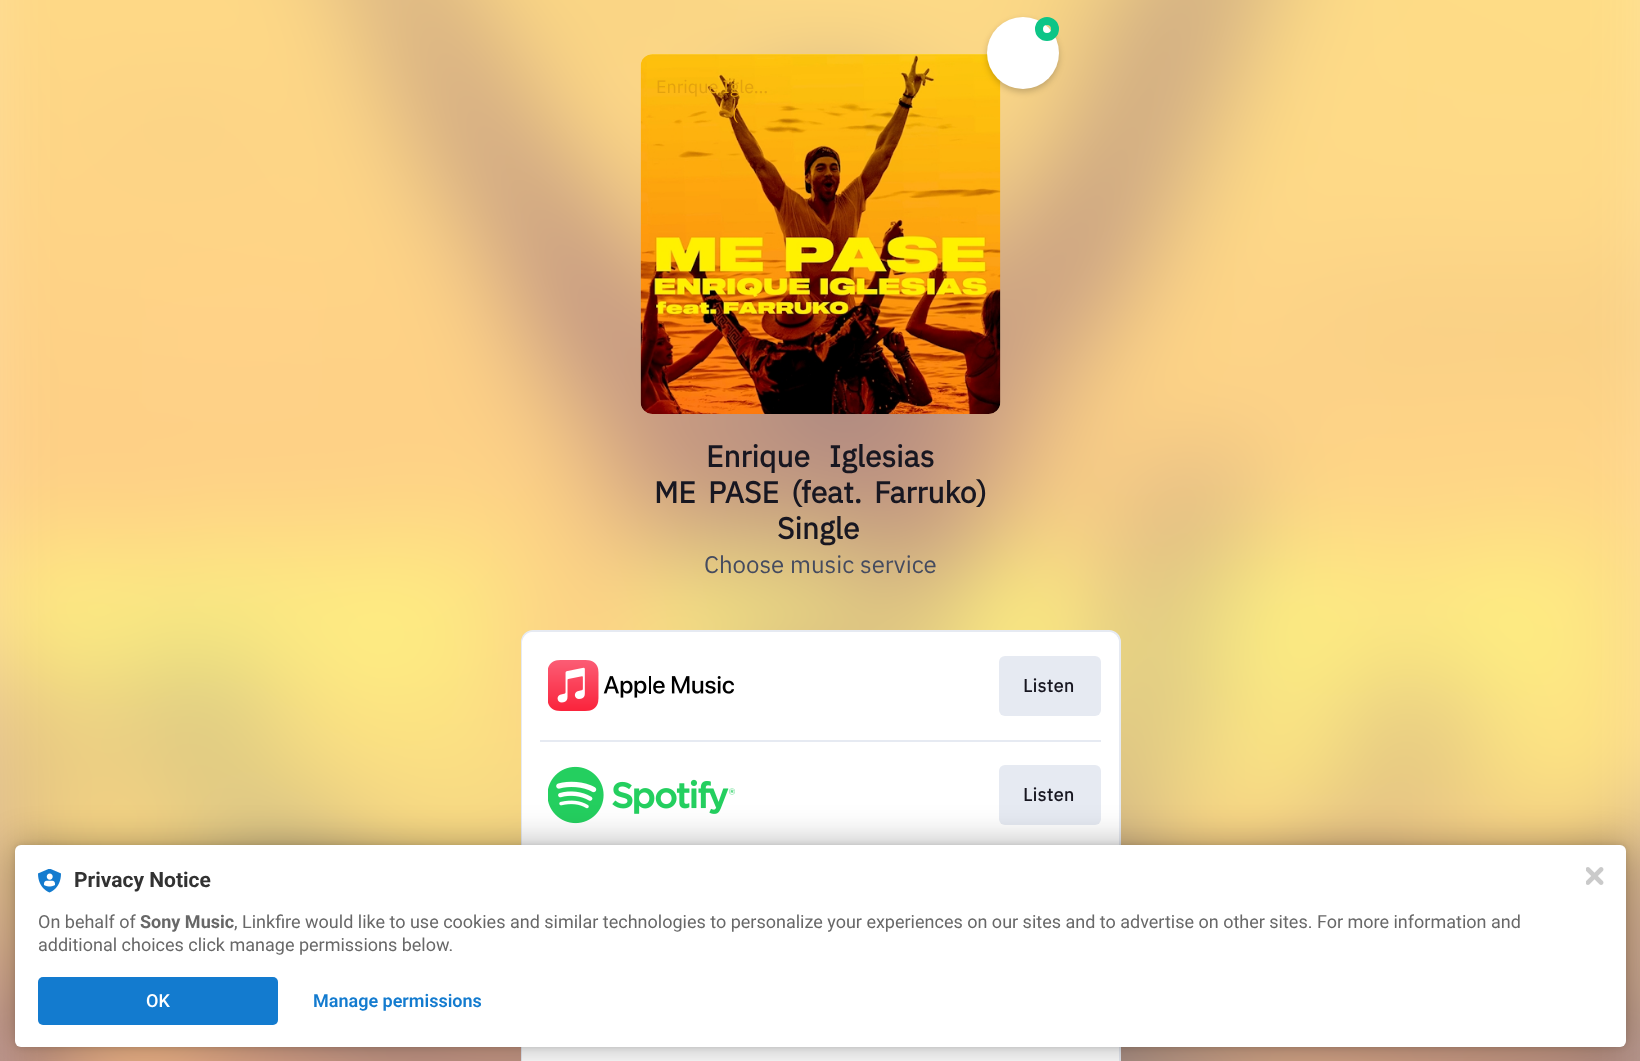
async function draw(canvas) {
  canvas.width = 1640
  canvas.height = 1061
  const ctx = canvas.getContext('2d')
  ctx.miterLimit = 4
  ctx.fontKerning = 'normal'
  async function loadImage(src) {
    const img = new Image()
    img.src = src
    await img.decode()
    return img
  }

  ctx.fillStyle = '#fff'
  ctx.fillRect(0, 0, 1640, 1061)
  ctx.drawImage(await loadImage('image0.png'), 0, 0, 1640, 1061)
  ctx.drawImage(await loadImage('image1.png'), 640, 54, 361, 360)
  ctx.fillStyle = '#00000033'
  ctx.filter = 'blur(3px)'
  ctx.beginPath()
  ctx.roundRect(987, 20, 72, 72, 36)
  ctx.fill()
  ctx.filter = 'none'
  ctx.fillStyle = '#fff'
  ctx.beginPath()
  ctx.arc(1023, 53, 36, 0, 2 * Math.PI)
  ctx.fill()
  ctx.beginPath()
  ctx.arc(1047, 29, 8, 0, 2 * Math.PI)
  ctx.strokeStyle = '#0dc587'
  ctx.lineWidth = 8
  ctx.stroke()
  ctx.font = '18px IBM Plex Sans'
  ctx.fillStyle = '#e3a20e'
  ctx.fillText('Enrique Igle…', 656, 93)
  ctx.fillStyle = '#eda40c'
  ctx.fillText('(', 732, 120)
  ctx.wordSpacing = '12px'
  ctx.font = 'bold 30px IBM Plex Sans'
  ctx.fillStyle = '#181721'
  ctx.fillText('Enrique Iglesias', 706, 467)
  ctx.wordSpacing = '5px'
  ctx.fillText('ME PASE (feat. Farruko)', 654, 503)
  ctx.wordSpacing = '0px'
  ctx.fillText('Single', 777, 539)
  ctx.font = '24px IBM Plex Sans'
  ctx.fillStyle = '#454b5f'
  ctx.fillText('Choose music service', 704, 573)
  ctx.fillStyle = '#fff'
  ctx.beginPath()
  ctx.roundRect(522, 631, 598, 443, 11)
  ctx.fill()
  ctx.strokeStyle = '#e6eaf2'
  ctx.lineWidth = 2
  ctx.stroke()
  ctx.beginPath()
  ctx.roundRect(522, 632, 597, 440, 11)
  ctx.fill()
  ctx.drawImage(await loadImage('image2.png'), 548, 660, 186, 51)
  ctx.fillStyle = '#e6eaf2'
  ctx.beginPath()
  ctx.roundRect(999, 656, 102, 60, 6)
  ctx.fill()
  ctx.letterSpacing = '0.5px'
  ctx.font = 'bold 18px IBM Plex Sans'
  ctx.fillStyle = '#181721'
  ctx.fillText('Listen', 1023, 692)
  ctx.fillStyle = '#e6eaf2'
  ctx.fillRect(540, 740, 561, 2)
  ctx.drawImage(await loadImage('image3.png'), 548, 766, 187, 58)
  ctx.beginPath()
  ctx.roundRect(999, 765, 102, 60, 6)
  ctx.fill()
  ctx.fillStyle = '#181721'
  ctx.fillText('Listen', 1023, 801)
  ctx.fillStyle = '#0000001f'
  ctx.filter = 'blur(3px)'
  ctx.beginPath()
  ctx.roundRect(15, 845, 1611, 202, 6)
  ctx.fill()
  ctx.filter = 'none'
  ctx.fillStyle = '#0000004d'
  ctx.filter = 'blur(18px)'
  ctx.beginPath()
  ctx.roundRect(15, 845, 1611, 202, 6)
  ctx.fill()
  ctx.filter = 'none'
  ctx.fillStyle = '#fff'
  ctx.beginPath()
  ctx.roundRect(15, 845, 1611, 202, 6)
  ctx.fill()
  ctx.drawImage(await loadImage('image4.png'), 38, 869, 23, 24)
  ctx.letterSpacing = '0px'
  ctx.font = 'bold 21px Roboto'
  ctx.fillStyle = '#323232'
  ctx.fillText('Privacy Notice', 74, 887)
  ctx.font = '18px Roboto'
  ctx.fillStyle = '#686868'
  ctx.fillText('On behalf of', 38, 928)
  ctx.font = 'bold 18px Roboto'
  ctx.fillText('Sony Music', 140, 928)
  ctx.font = '18px Roboto'
  ctx.fillText(', Linkfire would like to use cookies and similar technologies to personalize your experiences on our sites and to advertise on other sites. For more information and', 234, 928)
  ctx.fillText('additional choices click manage permissions below.', 38, 951)
  ctx.fillStyle = '#137bcf'
  ctx.beginPath()
  ctx.roundRect(38, 977, 240, 48, 5)
  ctx.fill()
  ctx.font = '500 18px Roboto'
  ctx.fillStyle = '#fff'
  ctx.fillText('OK', 146, 1007)
  ctx.font = '600 18px Roboto'
  ctx.fillStyle = '#137bcf'
  ctx.fillText('Manage permissions', 313, 1007)
  ctx.drawImage(await loadImage('image5.png'), 1586, 867, 18, 18)
}

draw(document.querySelector('canvas'))
